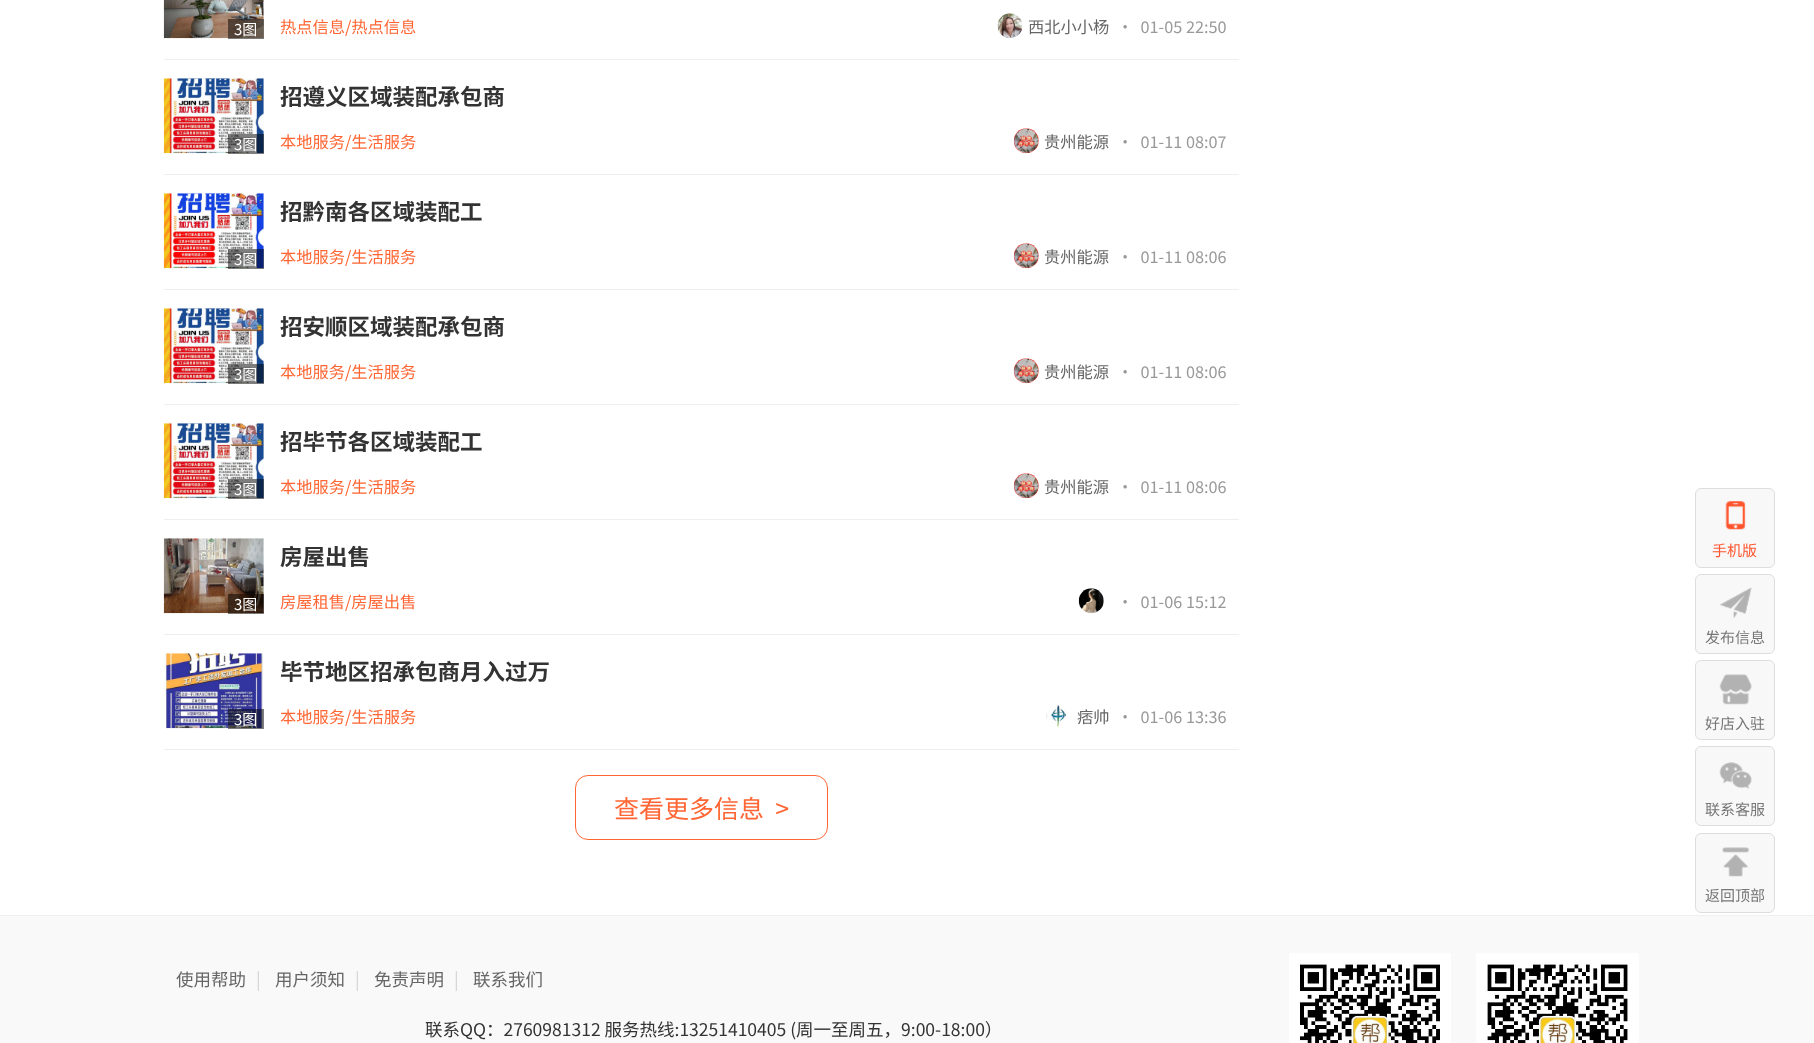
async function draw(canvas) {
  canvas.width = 1814
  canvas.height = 1043
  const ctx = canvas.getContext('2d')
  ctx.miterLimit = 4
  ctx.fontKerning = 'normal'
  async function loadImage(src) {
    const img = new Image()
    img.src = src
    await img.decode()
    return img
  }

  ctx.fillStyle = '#fff'
  ctx.fillRect(0, 0, 1814, 1043)
  ctx.fillStyle = '#eee'
  ctx.fillRect(164, 59, 1075, 1)
  ctx.drawImage(await loadImage('image0.png'), 163, 0, 101, 39)
  ctx.fillStyle = '#00000080'
  ctx.fillRect(228, 19, 36, 20)
  ctx.font = '15px Noto Sans CJK SC'
  ctx.fillStyle = '#fff'
  ctx.fillText('3图', 234, 35)
  ctx.font = '16.25px Noto Sans CJK SC'
  ctx.fillStyle = '#f63'
  ctx.fillText('热点信息/热点信息', 280, 33)
  ctx.drawImage(await loadImage('image1.png'), 997, 13, 26, 25)
  ctx.fillStyle = '#666'
  ctx.fillText('西北小小杨', 1028, 33)
  ctx.fillStyle = '#999'
  ctx.fillText('·  01-05 22:50', 1117, 33)
  ctx.fillStyle = '#eee'
  ctx.fillRect(164, 174, 1075, 1)
  ctx.drawImage(await loadImage('image2.png'), 163, 78, 101, 76)
  ctx.fillStyle = '#00000080'
  ctx.fillRect(228, 134, 36, 20)
  ctx.font = '15px Noto Sans CJK SC'
  ctx.fillStyle = '#fff'
  ctx.fillText('3图', 234, 150)
  ctx.font = 'bold 22.5px Noto Sans CJK SC'
  ctx.fillStyle = '#333'
  ctx.fillText('招遵义区域装配承包商', 280, 105)
  ctx.font = '16.25px Noto Sans CJK SC'
  ctx.fillStyle = '#f63'
  ctx.fillText('本地服务/生活服务', 280, 148)
  ctx.drawImage(await loadImage('image3.png'), 1013, 128, 26, 26)
  ctx.fillStyle = '#666'
  ctx.fillText('贵州能源', 1044, 148)
  ctx.fillStyle = '#999'
  ctx.fillText('·  01-11 08:07', 1117, 148)
  ctx.fillStyle = '#eee'
  ctx.fillRect(164, 289, 1075, 1)
  ctx.drawImage(await loadImage('image4.png'), 163, 193, 101, 76)
  ctx.fillStyle = '#00000080'
  ctx.fillRect(228, 249, 36, 20)
  ctx.font = '15px Noto Sans CJK SC'
  ctx.fillStyle = '#fff'
  ctx.fillText('3图', 234, 265)
  ctx.font = 'bold 22.5px Noto Sans CJK SC'
  ctx.fillStyle = '#333'
  ctx.fillText('招黔南各区域装配工', 280, 220)
  ctx.font = '16.25px Noto Sans CJK SC'
  ctx.fillStyle = '#f63'
  ctx.fillText('本地服务/生活服务', 280, 263)
  ctx.drawImage(await loadImage('image3.png'), 1013, 243, 26, 26)
  ctx.fillStyle = '#666'
  ctx.fillText('贵州能源', 1044, 263)
  ctx.fillStyle = '#999'
  ctx.fillText('·  01-11 08:06', 1117, 263)
  ctx.fillStyle = '#eee'
  ctx.fillRect(164, 404, 1075, 1)
  ctx.drawImage(await loadImage('image2.png'), 163, 308, 101, 76)
  ctx.fillStyle = '#00000080'
  ctx.fillRect(228, 364, 36, 20)
  ctx.font = '15px Noto Sans CJK SC'
  ctx.fillStyle = '#fff'
  ctx.fillText('3图', 234, 380)
  ctx.font = 'bold 22.5px Noto Sans CJK SC'
  ctx.fillStyle = '#333'
  ctx.fillText('招安顺区域装配承包商', 280, 335)
  ctx.font = '16.25px Noto Sans CJK SC'
  ctx.fillStyle = '#f63'
  ctx.fillText('本地服务/生活服务', 280, 378)
  ctx.drawImage(await loadImage('image3.png'), 1013, 358, 26, 26)
  ctx.fillStyle = '#666'
  ctx.fillText('贵州能源', 1044, 378)
  ctx.fillStyle = '#999'
  ctx.fillText('·  01-11 08:06', 1117, 378)
  ctx.fillStyle = '#eee'
  ctx.fillRect(164, 519, 1075, 1)
  ctx.drawImage(await loadImage('image2.png'), 163, 423, 101, 76)
  ctx.fillStyle = '#00000080'
  ctx.fillRect(228, 479, 36, 20)
  ctx.font = '15px Noto Sans CJK SC'
  ctx.fillStyle = '#fff'
  ctx.fillText('3图', 234, 495)
  ctx.font = 'bold 22.5px Noto Sans CJK SC'
  ctx.fillStyle = '#333'
  ctx.fillText('招毕节各区域装配工', 280, 450)
  ctx.font = '16.25px Noto Sans CJK SC'
  ctx.fillStyle = '#f63'
  ctx.fillText('本地服务/生活服务', 280, 493)
  ctx.drawImage(await loadImage('image3.png'), 1013, 473, 26, 26)
  ctx.fillStyle = '#666'
  ctx.fillText('贵州能源', 1044, 493)
  ctx.fillStyle = '#999'
  ctx.fillText('·  01-11 08:06', 1117, 493)
  ctx.fillStyle = '#eee'
  ctx.fillRect(164, 634, 1075, 1)
  ctx.drawImage(await loadImage('image5.png'), 163, 538, 101, 76)
  ctx.fillStyle = '#00000080'
  ctx.fillRect(228, 594, 36, 20)
  ctx.font = '15px Noto Sans CJK SC'
  ctx.fillStyle = '#fff'
  ctx.fillText('3图', 234, 610)
  ctx.font = 'bold 22.5px Noto Sans CJK SC'
  ctx.fillStyle = '#333'
  ctx.fillText('房屋出售', 280, 565)
  ctx.font = '16.25px Noto Sans CJK SC'
  ctx.fillStyle = '#f63'
  ctx.fillText('房屋租售/房屋出售', 280, 608)
  ctx.drawImage(await loadImage('image6.png'), 1078, 588, 26, 26)
  ctx.fillStyle = '#999'
  ctx.fillText('·  01-06 15:12', 1117, 608)
  ctx.fillStyle = '#eee'
  ctx.fillRect(164, 749, 1075, 1)
  ctx.drawImage(await loadImage('image7.png'), 164, 653, 99, 76)
  ctx.fillStyle = '#00000080'
  ctx.fillRect(228, 709, 36, 20)
  ctx.font = '15px Noto Sans CJK SC'
  ctx.fillStyle = '#fff'
  ctx.fillText('3图', 234, 725)
  ctx.font = 'bold 22.5px Noto Sans CJK SC'
  ctx.fillStyle = '#333'
  ctx.fillText('毕节地区招承包商月入过万', 280, 680)
  ctx.font = '16.25px Noto Sans CJK SC'
  ctx.fillStyle = '#f63'
  ctx.fillText('本地服务/生活服务', 280, 723)
  ctx.drawImage(await loadImage('image8.png'), 1046, 703, 21, 25)
  ctx.fillStyle = '#666'
  ctx.fillText('痞帅', 1077, 723)
  ctx.fillStyle = '#999'
  ctx.fillText('·  01-06 13:36', 1117, 723)
  ctx.beginPath()
  ctx.roundRect(575.5, 775.5, 252, 64, 12.5)
  ctx.strokeStyle = '#f63'
  ctx.stroke()
  ctx.font = '25px Noto Sans CJK SC'
  ctx.fillStyle = '#f63'
  ctx.fillText('查看更多信息  >', 614, 818)
  ctx.fillStyle = '#f8f8f8'
  ctx.beginPath()
  ctx.roundRect(1695.5, 488.5, 79, 79, 5.5)
  ctx.fill()
  ctx.strokeStyle = '#ddd'
  ctx.stroke()
  ctx.drawImage(await loadImage('image9.png'), 1725, 501, 21, 29)
  ctx.font = '15px Noto Sans CJK SC'
  ctx.fillStyle = '#ff552e'
  ctx.fillText('手机版', 1712, 556)
  ctx.fillStyle = '#f8f8f8'
  ctx.beginPath()
  ctx.roundRect(1695.5, 574.5, 79, 79, 5.5)
  ctx.fill()
  ctx.stroke()
  ctx.drawImage(await loadImage('image10.png'), 1719, 587, 33, 31)
  ctx.fillStyle = '#777'
  ctx.fillText('发布信息', 1705, 643)
  ctx.fillStyle = '#f8f8f8'
  ctx.beginPath()
  ctx.roundRect(1695.5, 660.5, 79, 79, 5.5)
  ctx.fill()
  ctx.stroke()
  ctx.drawImage(await loadImage('image11.png'), 1719, 674, 33, 31)
  ctx.fillStyle = '#777'
  ctx.fillText('好店入驻', 1705, 729)
  ctx.fillStyle = '#f8f8f8'
  ctx.beginPath()
  ctx.roundRect(1695.5, 746.5, 79, 79, 5.5)
  ctx.fill()
  ctx.stroke()
  ctx.drawImage(await loadImage('image12.png'), 1719, 762, 33, 27)
  ctx.fillStyle = '#777'
  ctx.fillText('联系客服', 1705, 815)
  ctx.fillStyle = '#f8f8f8'
  ctx.beginPath()
  ctx.roundRect(1695.5, 833.5, 79, 79, 5.5)
  ctx.fill()
  ctx.stroke()
  ctx.drawImage(await loadImage('image13.png'), 1722, 847, 27, 30)
  ctx.fillStyle = '#777'
  ctx.fillText('返回顶部', 1705, 901)
  ctx.fillStyle = '#f9f9f9'
  ctx.fillRect(0, 916, 1814, 127)
  ctx.fillStyle = '#efefef'
  ctx.fillRect(0, 915, 1814, 1)
  ctx.font = '17.5px Noto Sans CJK SC'
  ctx.fillStyle = '#666'
  ctx.fillText('使用帮助', 176, 986)
  ctx.fillStyle = '#d4d4d4'
  ctx.fillText('|', 256, 986)
  ctx.fillStyle = '#666'
  ctx.fillText('用户须知', 275, 986)
  ctx.fillStyle = '#d4d4d4'
  ctx.fillText('|', 355, 986)
  ctx.fillStyle = '#666'
  ctx.fillText('免责声明', 374, 986)
  ctx.fillStyle = '#d4d4d4'
  ctx.fillText('|', 454, 986)
  ctx.fillStyle = '#666'
  ctx.fillText('联系我们', 473, 986)
  ctx.fillStyle = '#333'
  ctx.fillText('联系QQ：2760981312 服务热线:13251410405 (周一至周五，9:00-18:00）', 425, 1036)
  ctx.drawImage(await loadImage('image14.png'), 1289, 953, 162, 90)
  ctx.drawImage(await loadImage('image15.png'), 1476, 953, 163, 90)
}

draw(document.querySelector('canvas'))
